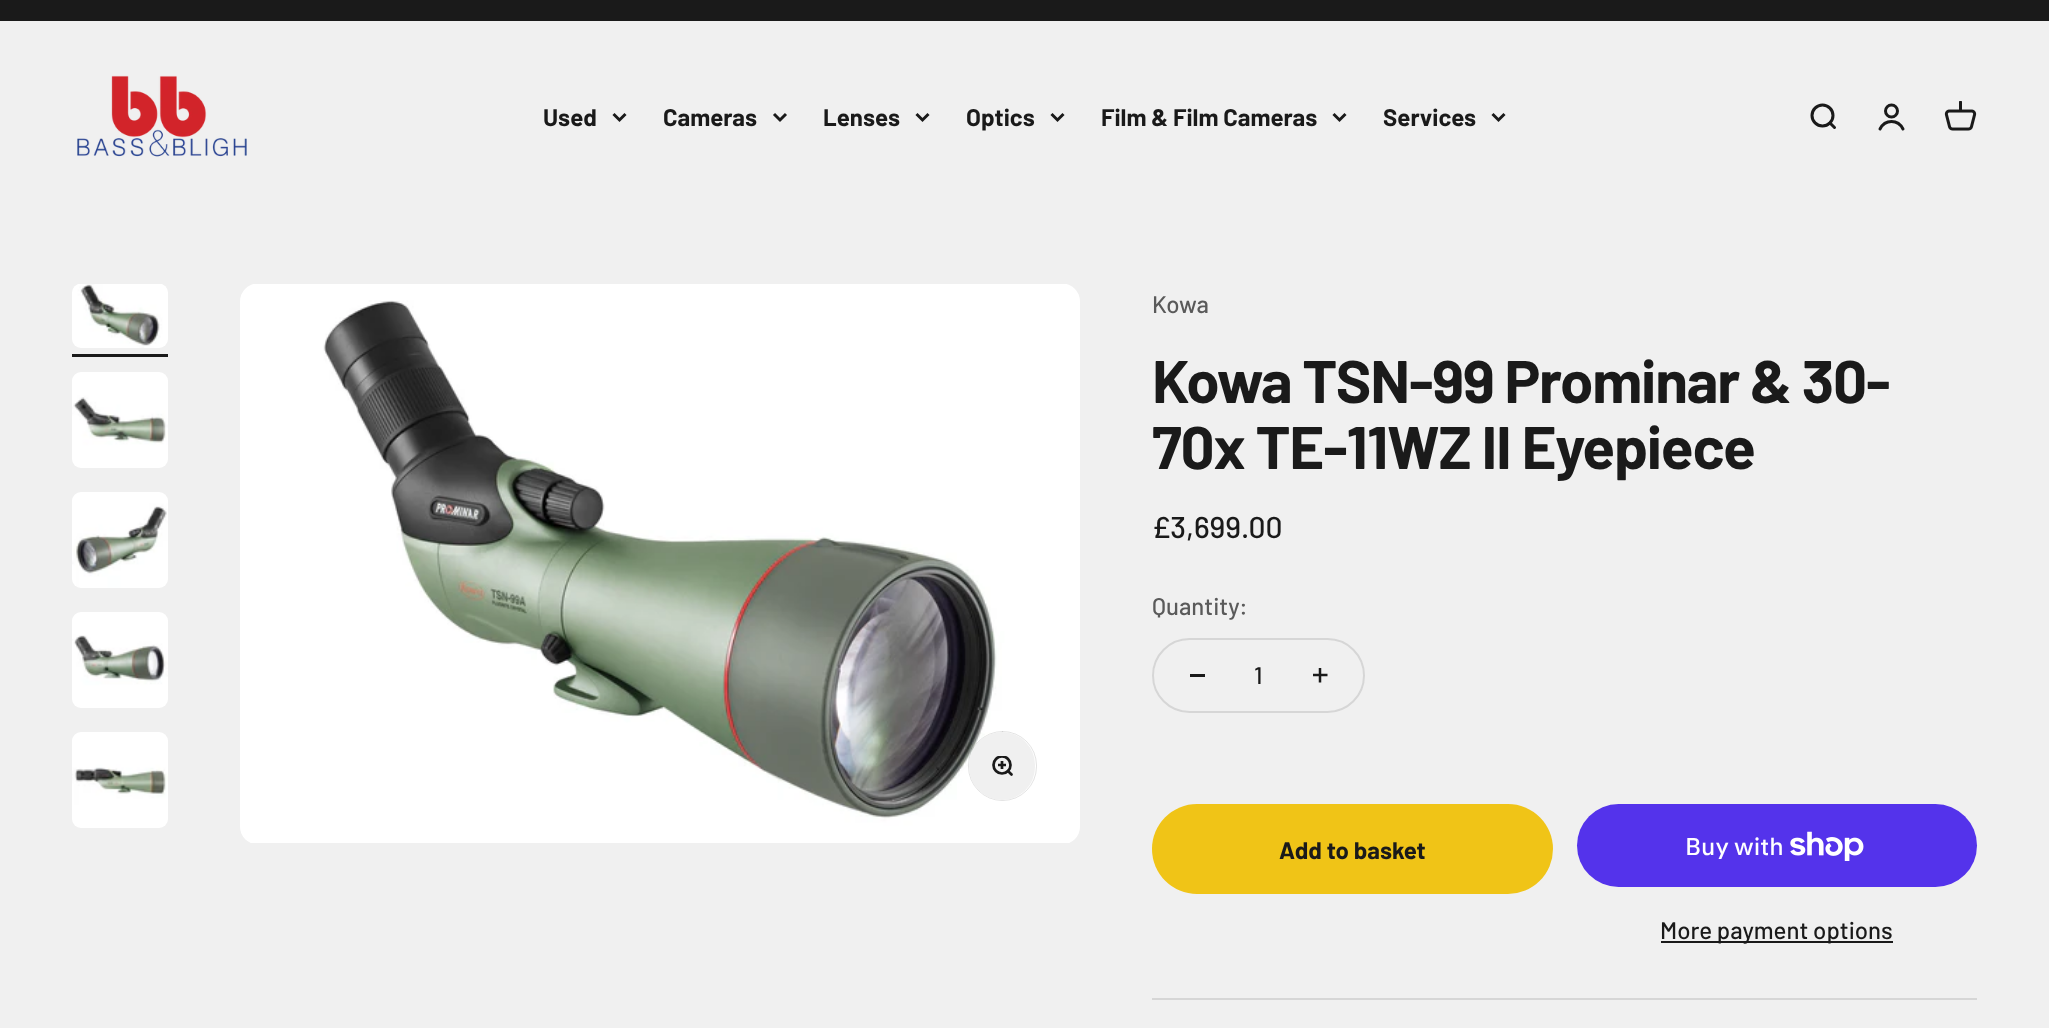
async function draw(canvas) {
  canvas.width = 2049
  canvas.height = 1028
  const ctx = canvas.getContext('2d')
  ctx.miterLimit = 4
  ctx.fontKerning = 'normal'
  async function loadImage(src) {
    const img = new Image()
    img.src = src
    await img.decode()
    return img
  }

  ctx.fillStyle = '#f0f0f0'
  ctx.fillRect(0, 0, 2049, 1028)
  ctx.fillStyle = '#1a1a1a'
  ctx.fillRect(0, 0, 2049, 21)
  ctx.drawImage(await loadImage('image0.png'), 77, 75, 170, 82)
  ctx.font = 'bold 24px Barlow'
  ctx.fillText('Used', 543, 126)
  ctx.beginPath()
  ctx.moveTo(613.5, 114)
  ctx.lineTo(619.5, 120)
  ctx.lineTo(625.5, 114)
  ctx.strokeStyle = '#1a1a1a'
  ctx.lineWidth = 3
  ctx.stroke()
  ctx.fillText('Cameras', 663, 126)
  ctx.beginPath()
  ctx.moveTo(774, 114)
  ctx.lineTo(780, 120)
  ctx.lineTo(786, 114)
  ctx.stroke()
  ctx.fillText('Lenses', 823, 126)
  ctx.beginPath()
  ctx.moveTo(916.5, 114)
  ctx.lineTo(922.5, 120)
  ctx.lineTo(928.5, 114)
  ctx.stroke()
  ctx.fillText('Optics', 966, 126)
  ctx.beginPath()
  ctx.moveTo(1051.5, 114)
  ctx.lineTo(1057.5, 120)
  ctx.lineTo(1063.5, 114)
  ctx.stroke()
  ctx.fillText('Film & Film Cameras', 1101, 126)
  ctx.beginPath()
  ctx.moveTo(1333.5, 114)
  ctx.lineTo(1339.5, 120)
  ctx.lineTo(1345.5, 114)
  ctx.stroke()
  ctx.fillText('Services', 1383, 126)
  ctx.beginPath()
  ctx.moveTo(1492.5, 114)
  ctx.lineTo(1498.5, 120)
  ctx.lineTo(1504.5, 114)
  ctx.stroke()
  ctx.beginPath()
  ctx.arc(1822.5, 115.5, 10.5, 0, 2 * Math.PI)
  ctx.stroke()
  ctx.beginPath()
  ctx.moveTo(1830, 123)
  ctx.lineTo(1834.5, 127.5)
  ctx.lineCap = 'round'
  ctx.lineJoin = 'round'
  ctx.stroke()
  ctx.beginPath()
  ctx.arc(1891.5, 111, 6, 0, 2 * Math.PI)
  ctx.stroke()
  ctx.beginPath()
  ctx.moveTo(1880, 129)
  ctx.bezierCurveTo(1885, 119, 1898, 119, 1903, 129)
  ctx.lineJoin = 'miter'
  ctx.stroke()
  ctx.drawImage(await loadImage('image1.png'), 1944, 101, 33, 30)
  ctx.drawImage(await loadImage('image2.png'), 72, 284, 96, 64)
  ctx.fillRect(72, 354, 96, 3)
  ctx.drawImage(await loadImage('image3.png'), 72, 372, 96, 96)
  ctx.drawImage(await loadImage('image4.png'), 72, 492, 96, 96)
  ctx.drawImage(await loadImage('image5.png'), 72, 612, 96, 96)
  ctx.drawImage(await loadImage('image6.png'), 72, 732, 96, 96)
  ctx.drawImage(await loadImage('image7.png'), 240, 284, 840, 559)
  ctx.beginPath()
  ctx.roundRect(968.5, 731.5, 68, 69, 34)
  ctx.strokeStyle = '#1a1a1a1f'
  ctx.lineWidth = 1
  ctx.stroke()
  ctx.fillStyle = '#f0f0f0'
  ctx.beginPath()
  ctx.roundRect(969, 732, 66, 68, 33)
  ctx.fill()
  ctx.save()
  ctx.beginPath()
  ctx.rect(992, 756, 21, 20)
  ctx.clip()
  ctx.beginPath()
  ctx.arc(1002, 765, 8.5, 0, 2 * Math.PI)
  ctx.strokeStyle = '#1a1a1a'
  ctx.lineWidth = 2.7
  ctx.stroke()
  ctx.restore()
  ctx.beginPath()
  ctx.moveTo(1008, 771)
  ctx.lineTo(1011.5, 774.5)
  ctx.strokeStyle = '#1a1a1a'
  ctx.lineWidth = 2.7
  ctx.lineJoin = 'round'
  ctx.stroke()
  ctx.beginPath()
  ctx.moveTo(1002, 761)
  ctx.lineTo(1002, 769)
  ctx.moveTo(998, 765)
  ctx.lineTo(1006, 765)
  ctx.lineCap = 'butt'
  ctx.lineJoin = 'miter'
  ctx.stroke()
  ctx.font = '500 24px Barlow'
  ctx.fillStyle = '#5a5a5a'
  ctx.fillText('Kowa', 1152, 313)
  ctx.letterSpacing = '-1.2px'
  ctx.font = 'bold 60px Barlow'
  ctx.fillStyle = '#1a1a1a'
  ctx.fillText('Kowa TSN-99 Prominar & 30-', 1152, 403)
  ctx.fillText('70x TE-11WZ II Eyepiece', 1152, 469)
  ctx.letterSpacing = '0px'
  ctx.font = '500 30px Barlow'
  ctx.fillText('£3,699.00', 1152, 538)
  ctx.font = '500 24px Barlow'
  ctx.fillStyle = '#5a5a5a'
  ctx.fillText('Quantity:', 1152, 615)
  ctx.beginPath()
  ctx.roundRect(1153, 639, 211, 73, 36.5)
  ctx.strokeStyle = '#d6d6d6'
  ctx.lineWidth = 2
  ctx.stroke()
  ctx.fillStyle = '#1a1a1a'
  ctx.fillRect(1190, 674, 15, 3)
  ctx.fillText('1', 1254, 684)
  ctx.save()
  ctx.beginPath()
  ctx.rect(1313, 668, 15, 15)
  ctx.clip()
  ctx.beginPath()
  ctx.moveTo(1320, 667.5)
  ctx.lineTo(1320, 682.5)
  ctx.moveTo(1312.5, 675)
  ctx.lineTo(1327.5, 675)
  ctx.strokeStyle = '#1a1a1a'
  ctx.lineWidth = 2.5
  ctx.stroke()
  ctx.restore()
  ctx.fillStyle = '#f0c417'
  ctx.beginPath()
  ctx.roundRect(1152, 804, 401, 90, 45)
  ctx.fill()
  ctx.font = 'bold 24px Barlow'
  ctx.fillStyle = '#1a1a1a'
  ctx.fillText('Add to basket', 1279, 859)
  ctx.fillStyle = '#5433eb'
  ctx.beginPath()
  ctx.roundRect(1577, 804, 400, 83, 41.5)
  ctx.fill()
  ctx.font = '500 24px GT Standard'
  ctx.fillStyle = '#fff'
  ctx.fillText('Buy with', 1685, 855)
  ctx.drawImage(await loadImage('image8.png'), 1790, 831, 74, 30)
  ctx.fillStyle = '#1a1a1a'
  ctx.fillRect(1661, 941, 232, 2)
  ctx.font = '500 24px Barlow'
  ctx.fillText('More payment options', 1660, 939)
  ctx.fillStyle = '#d6d6d6'
  ctx.fillRect(1152, 998, 825, 2)
}

draw(document.querySelector('canvas'))
